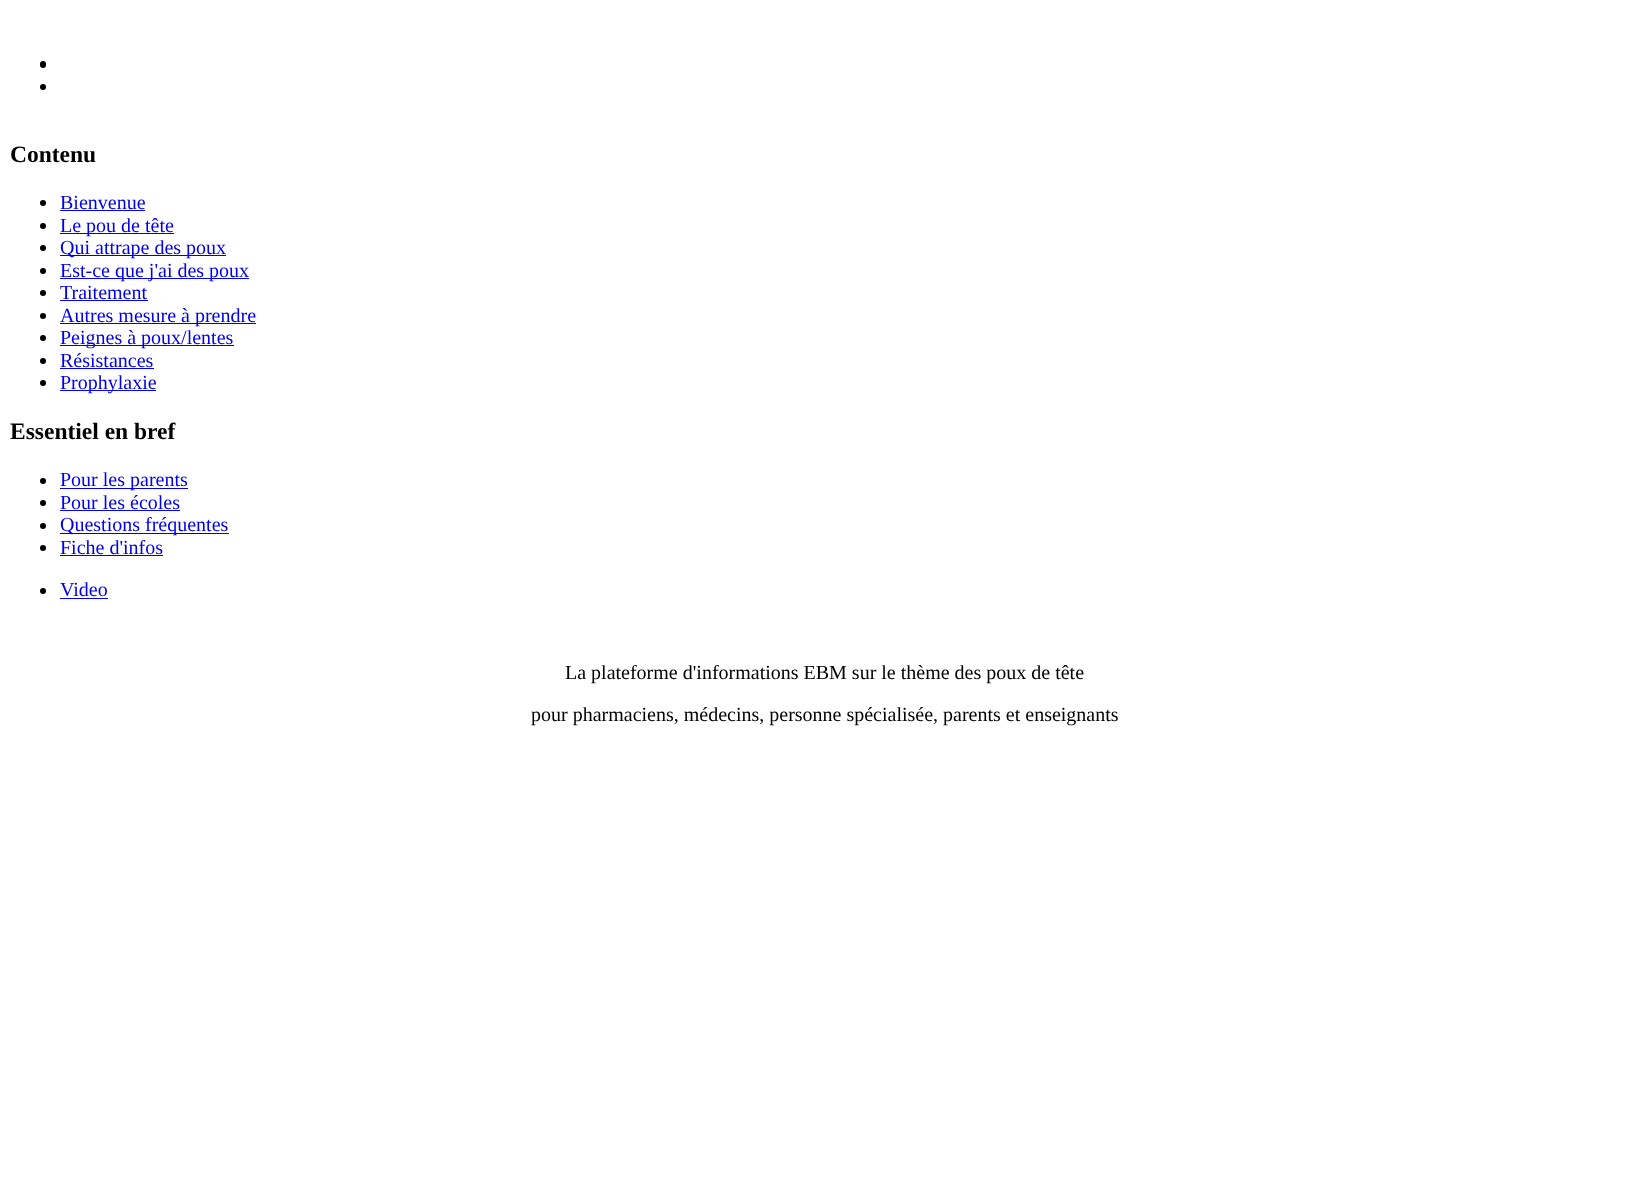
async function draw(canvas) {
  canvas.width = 1649
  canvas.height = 1192
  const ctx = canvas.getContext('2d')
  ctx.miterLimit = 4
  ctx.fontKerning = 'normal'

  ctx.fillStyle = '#fff'
  ctx.fillRect(0, 0, 1649, 1192)
  ctx.fillStyle = '#000'
  ctx.beginPath()
  ctx.roundRect(40, 61, 6, 7, 3)
  ctx.fill()
  ctx.beginPath()
  ctx.arc(43, 87, 3, 0, 2 * Math.PI)
  ctx.fill()
  ctx.font = 'bold 23.5px Liberation Serif'
  ctx.fillText('Contenu', 10, 162)
  ctx.beginPath()
  ctx.arc(43, 203, 3, 0, 2 * Math.PI)
  ctx.fill()
  ctx.font = '20px Liberation Serif'
  ctx.fillStyle = '#00e'
  ctx.fillText('Bienvenue', 60, 209)
  ctx.fillRect(60, 210, 85, 1)
  ctx.fillStyle = '#000'
  ctx.beginPath()
  ctx.arc(43, 226, 3, 0, 2 * Math.PI)
  ctx.fill()
  ctx.fillStyle = '#00e'
  ctx.fillRect(60, 233, 114, 1)
  ctx.fillText('Le pou de tête', 60, 232)
  ctx.fillStyle = '#000'
  ctx.beginPath()
  ctx.arc(43, 248, 3, 0, 2 * Math.PI)
  ctx.fill()
  ctx.fillStyle = '#00e'
  ctx.fillRect(60, 255, 166, 1)
  ctx.fillText('Qui attrape des poux', 60, 254)
  ctx.fillStyle = '#000'
  ctx.beginPath()
  ctx.arc(43, 271, 3, 0, 2 * Math.PI)
  ctx.fill()
  ctx.fillStyle = '#00e'
  ctx.fillRect(60, 278, 189, 1)
  ctx.fillText('Est-ce que j\'ai des poux', 60, 277)
  ctx.fillStyle = '#000'
  ctx.beginPath()
  ctx.arc(43, 293, 3, 0, 2 * Math.PI)
  ctx.fill()
  ctx.fillStyle = '#00e'
  ctx.fillText('Traitement', 60, 299)
  ctx.fillRect(60, 300, 88, 1)
  ctx.fillStyle = '#000'
  ctx.beginPath()
  ctx.arc(43, 316, 3, 0, 2 * Math.PI)
  ctx.fill()
  ctx.fillStyle = '#00e'
  ctx.fillRect(60, 323, 196, 1)
  ctx.fillText('Autres mesure à prendre', 60, 322)
  ctx.fillStyle = '#000'
  ctx.beginPath()
  ctx.arc(43, 338, 3, 0, 2 * Math.PI)
  ctx.fill()
  ctx.fillStyle = '#00e'
  ctx.fillRect(60, 345, 174, 1)
  ctx.fillText('Peignes à poux/lentes', 60, 344)
  ctx.fillStyle = '#000'
  ctx.beginPath()
  ctx.arc(43, 361, 3, 0, 2 * Math.PI)
  ctx.fill()
  ctx.fillStyle = '#00e'
  ctx.fillText('Résistances', 60, 367)
  ctx.fillRect(60, 368, 94, 1)
  ctx.fillStyle = '#000'
  ctx.beginPath()
  ctx.arc(43, 383, 3, 0, 2 * Math.PI)
  ctx.fill()
  ctx.fillStyle = '#00e'
  ctx.fillRect(60, 390, 96, 1)
  ctx.fillText('Prophylaxie', 60, 389)
  ctx.font = 'bold 23.5px Liberation Serif'
  ctx.fillStyle = '#000'
  ctx.fillText('Essentiel en bref', 10, 439)
  ctx.beginPath()
  ctx.arc(43, 481, 3, 0, 2 * Math.PI)
  ctx.fill()
  ctx.fillStyle = '#00e'
  ctx.fillRect(60, 488, 128, 1)
  ctx.font = '20px Liberation Serif'
  ctx.fillText('Pour les parents', 60, 486)
  ctx.fillStyle = '#000'
  ctx.beginPath()
  ctx.arc(43, 503, 3, 0, 2 * Math.PI)
  ctx.fill()
  ctx.fillStyle = '#00e'
  ctx.fillText('Pour les écoles', 60, 509)
  ctx.fillRect(60, 510, 120, 1)
  ctx.fillStyle = '#000'
  ctx.beginPath()
  ctx.arc(43, 526, 3, 0, 2 * Math.PI)
  ctx.fill()
  ctx.fillStyle = '#00e'
  ctx.fillRect(60, 533, 169, 1)
  ctx.fillText('Questions fréquentes', 60, 531)
  ctx.fillStyle = '#000'
  ctx.beginPath()
  ctx.arc(43, 548, 3, 0, 2 * Math.PI)
  ctx.fill()
  ctx.fillStyle = '#00e'
  ctx.fillText('Fiche d\'infos', 60, 554)
  ctx.fillRect(60, 555, 103, 1)
  ctx.fillStyle = '#000'
  ctx.beginPath()
  ctx.arc(43, 591, 3, 0, 2 * Math.PI)
  ctx.fill()
  ctx.fillStyle = '#00e'
  ctx.fillText('Video', 60, 596)
  ctx.fillRect(60, 598, 48, 1)
  ctx.fillStyle = '#000'
  ctx.fillText('La plateforme d\'informations EBM sur le thème des poux de tête', 565, 679)
  ctx.fillText('pour pharmaciens, médecins, personne spécialisée, parents et enseignants', 531, 721)
}

draw(document.querySelector('canvas'))
